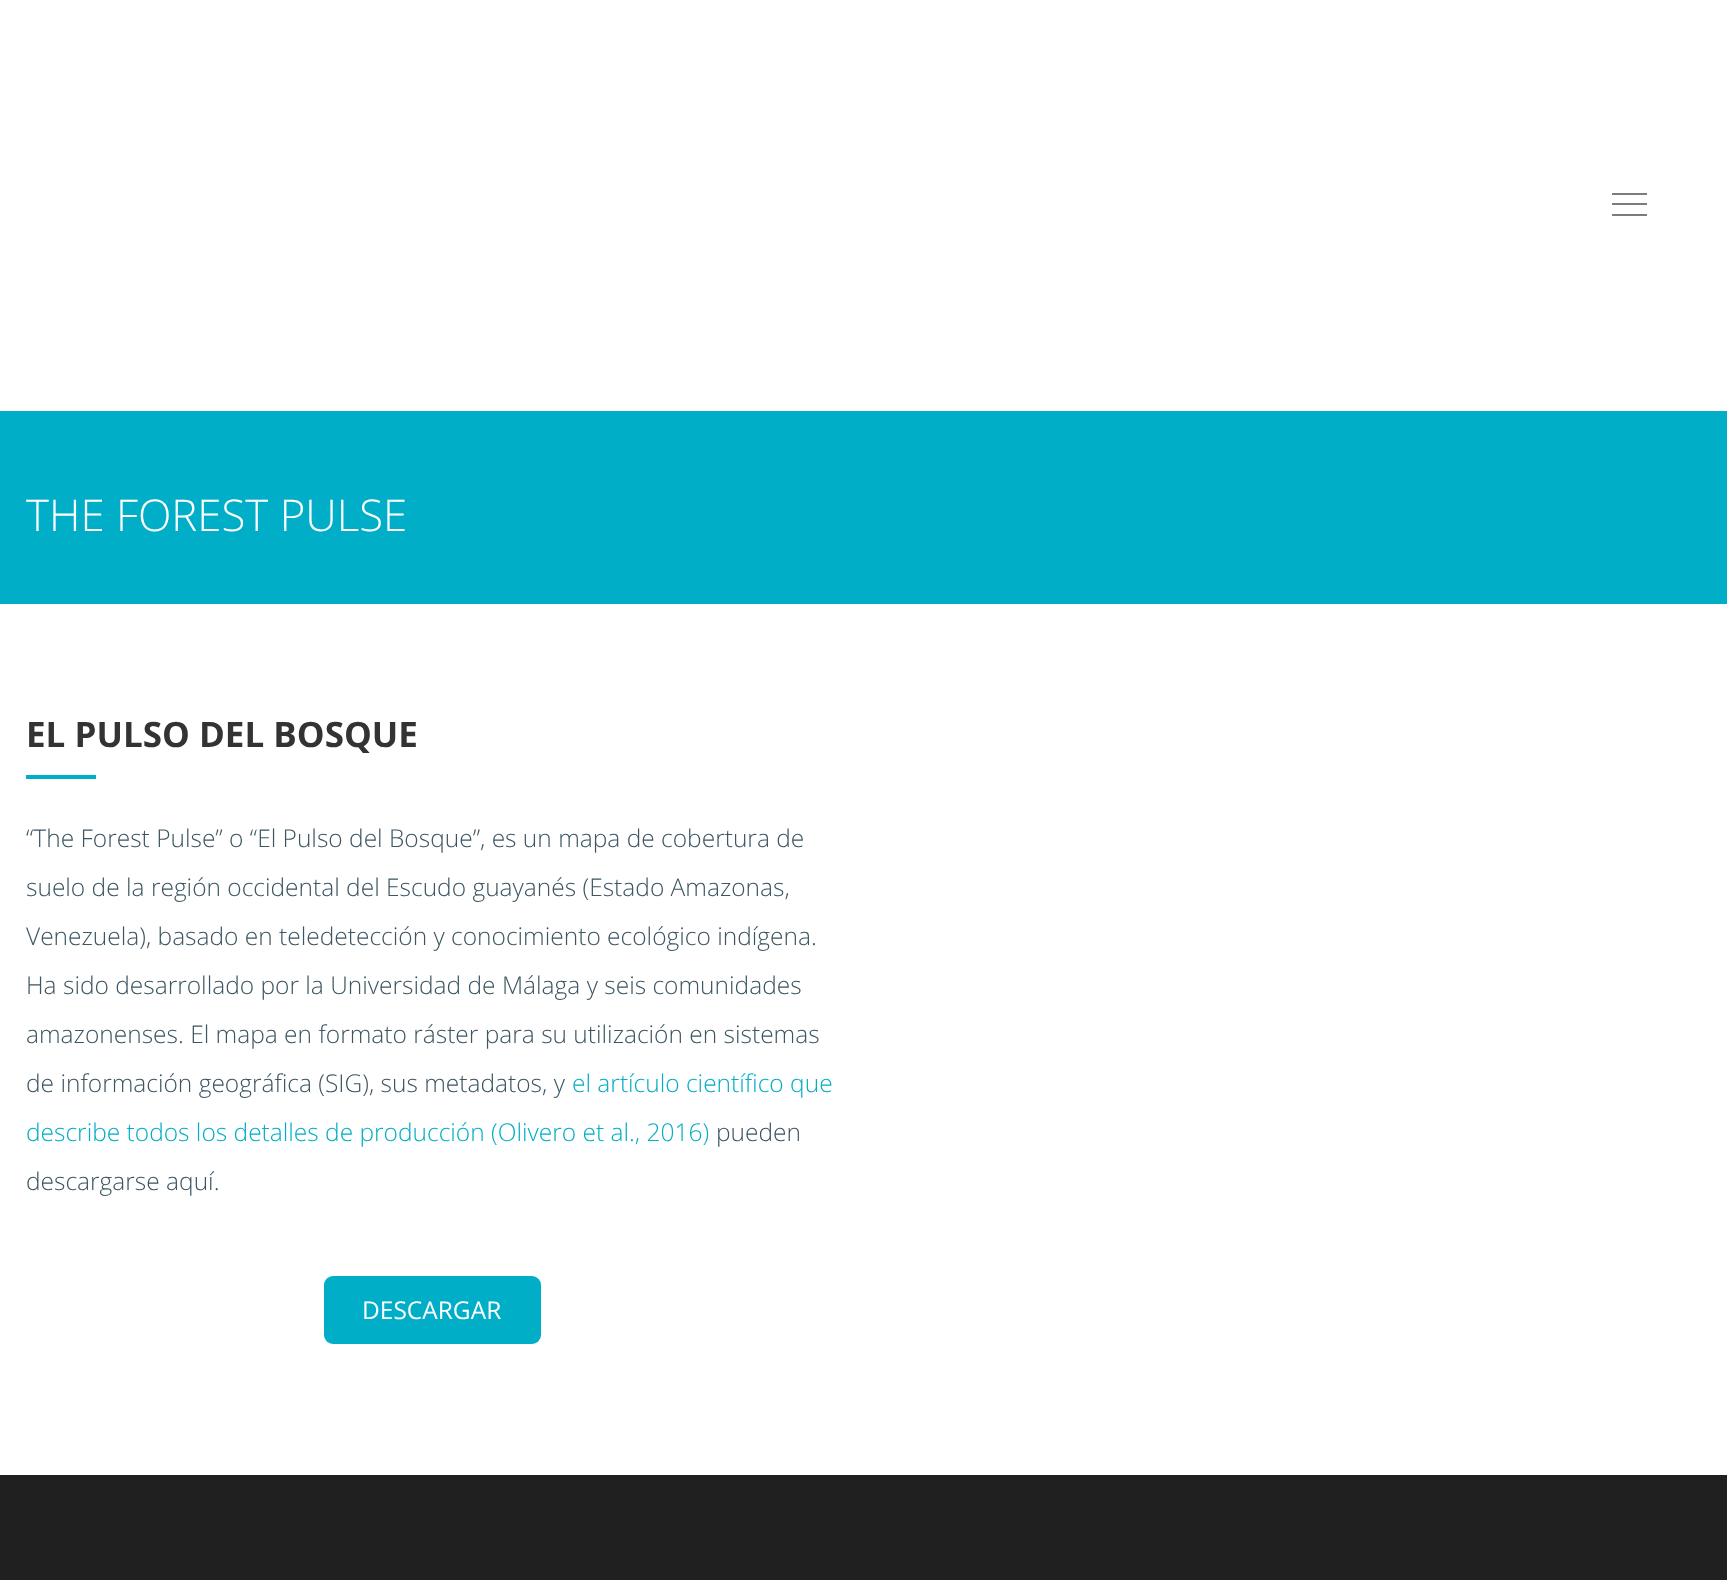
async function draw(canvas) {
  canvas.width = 1727
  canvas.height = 1580
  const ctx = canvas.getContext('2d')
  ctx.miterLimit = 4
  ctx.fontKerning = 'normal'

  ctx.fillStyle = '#fff'
  ctx.fillRect(0, 0, 1727, 1580)
  ctx.fillStyle = '#7c7c7c'
  ctx.fillRect(1612, 203, 35, 2)
  ctx.fillRect(1612, 193, 35, 2)
  ctx.fillRect(1612, 214, 35, 2)
  ctx.fillStyle = '#00aec7'
  ctx.fillRect(0, 411, 1727, 193)
  ctx.font = '300 43.75px Open Sans'
  ctx.fillStyle = '#fff'
  ctx.fillText('THE FOREST PULSE', 26, 531)
  ctx.font = 'bold 35px Open Sans'
  ctx.fillStyle = '#333'
  ctx.fillText('EL PULSO DEL BOSQUE', 26, 747)
  ctx.fillStyle = '#00aec7'
  ctx.fillRect(26, 775, 70, 4)
  ctx.font = '300 24.5px Open Sans'
  ctx.fillStyle = '#3c5561'
  ctx.fillText('“The Forest Pulse” o “El Pulso del Bosque”, es un mapa de cobertura de', 26, 847)
  ctx.fillText('suelo de la región occidental del Escudo guayanés (Estado Amazonas,', 26, 896)
  ctx.fillText('Venezuela), basado en teledetección y conocimiento ecológico indígena.', 26, 945)
  ctx.fillText('Ha sido desarrollado por la Universidad de Málaga y seis comunidades', 26, 994)
  ctx.fillText('amazonenses. El mapa en formato ráster para su utilización en sistemas', 26, 1043)
  ctx.fillText('de información geográfica (SIG), sus metadatos, y', 26, 1092)
  ctx.fillStyle = '#00aec7'
  ctx.fillText('el artículo científico que', 572, 1092)
  ctx.fillText('describe todos los detalles de producción (Olivero et al., 2016)', 26, 1141)
  ctx.fillStyle = '#3c5561'
  ctx.fillText('pueden', 716, 1141)
  ctx.fillText('descargarse aquí.', 26, 1190)
  ctx.fillStyle = '#00aec7'
  ctx.beginPath()
  ctx.roundRect(324, 1276, 217, 68, 9)
  ctx.fill()
  ctx.font = '24.5px Open Sans'
  ctx.fillStyle = '#fff'
  ctx.fillText('DESCARGAR', 362, 1319)
  ctx.fillStyle = '#202020'
  ctx.fillRect(0, 1475, 1727, 105)
}

draw(document.querySelector('canvas'))
